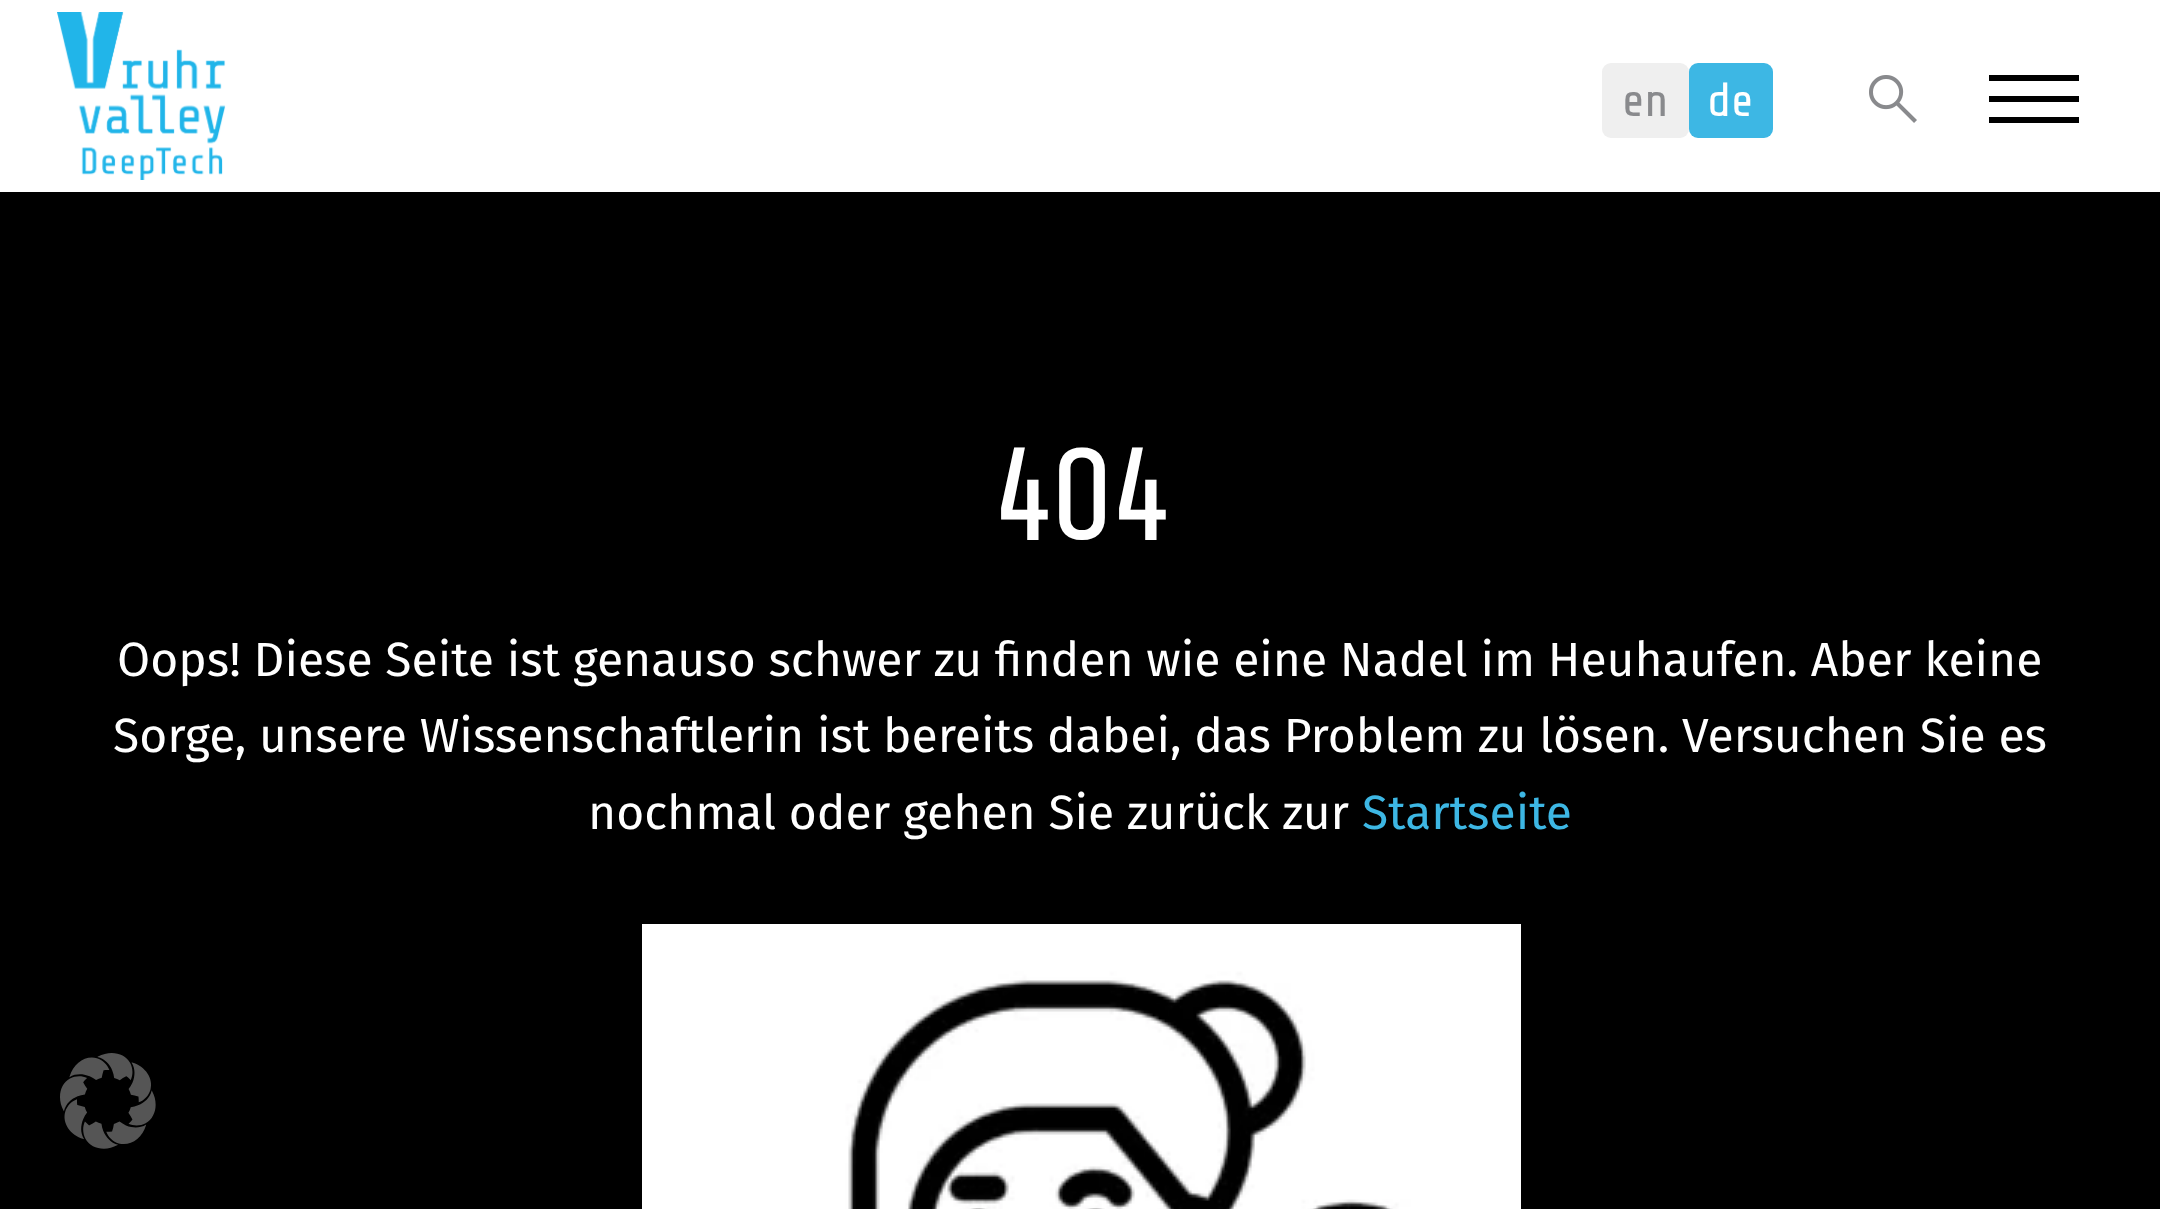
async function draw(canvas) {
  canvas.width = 2160
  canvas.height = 1209
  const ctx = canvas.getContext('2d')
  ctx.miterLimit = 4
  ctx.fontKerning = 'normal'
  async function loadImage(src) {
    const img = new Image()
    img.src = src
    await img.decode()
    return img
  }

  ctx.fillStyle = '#fff'
  ctx.fillRect(0, 0, 2160, 1209)
  ctx.drawImage(await loadImage('image0.png'), 57, 12, 169, 168)
  ctx.fillStyle = '#efefef'
  ctx.beginPath()
  ctx.roundRect(1602, 63, 87, 75, 9)
  ctx.fill()
  ctx.font = '48px Share Tech'
  ctx.fillStyle = '#898a8d'
  ctx.fillText('en', 1622, 116)
  ctx.fillStyle = '#3db7e4'
  ctx.beginPath()
  ctx.roundRect(1689, 63, 84, 75, 9)
  ctx.fill()
  ctx.fillStyle = '#fff'
  ctx.fillText('de', 1707, 116)
  ctx.drawImage(await loadImage('image1.png'), 1869, 75, 48, 48)
  ctx.fillStyle = '#000'
  ctx.fillRect(1989, 75, 90, 6)
  ctx.fillRect(1989, 96, 90, 6)
  ctx.fillRect(1989, 117, 90, 6)
  ctx.fillRect(0, 192, 2160, 1017)
  ctx.letterSpacing = '-3px'
  ctx.font = '132px Share Tech'
  ctx.fillStyle = '#fff'
  ctx.fillText('404', 992, 540)
  ctx.letterSpacing = '0px'
  ctx.font = '48px Fira Sans'
  ctx.fillText('Oops! Diese Seite ist genauso schwer zu finden wie eine Nadel im Heuhaufen. Aber keine', 117, 676)
  ctx.fillText('Sorge, unsere Wissenschaftlerin ist bereits dabei, das Problem zu lösen. Versuchen Sie es', 113, 752)
  ctx.fillText('nochmal oder gehen Sie zurück zur', 588, 829)
  ctx.fillStyle = '#3db7e4'
  ctx.fillText('Startseite', 1362, 829)
  ctx.drawImage(await loadImage('image2.png'), 642, 924, 879, 285)
  ctx.drawImage(await loadImage('image3.png'), 60, 1053, 96, 96)
}

draw(document.querySelector('canvas'))
